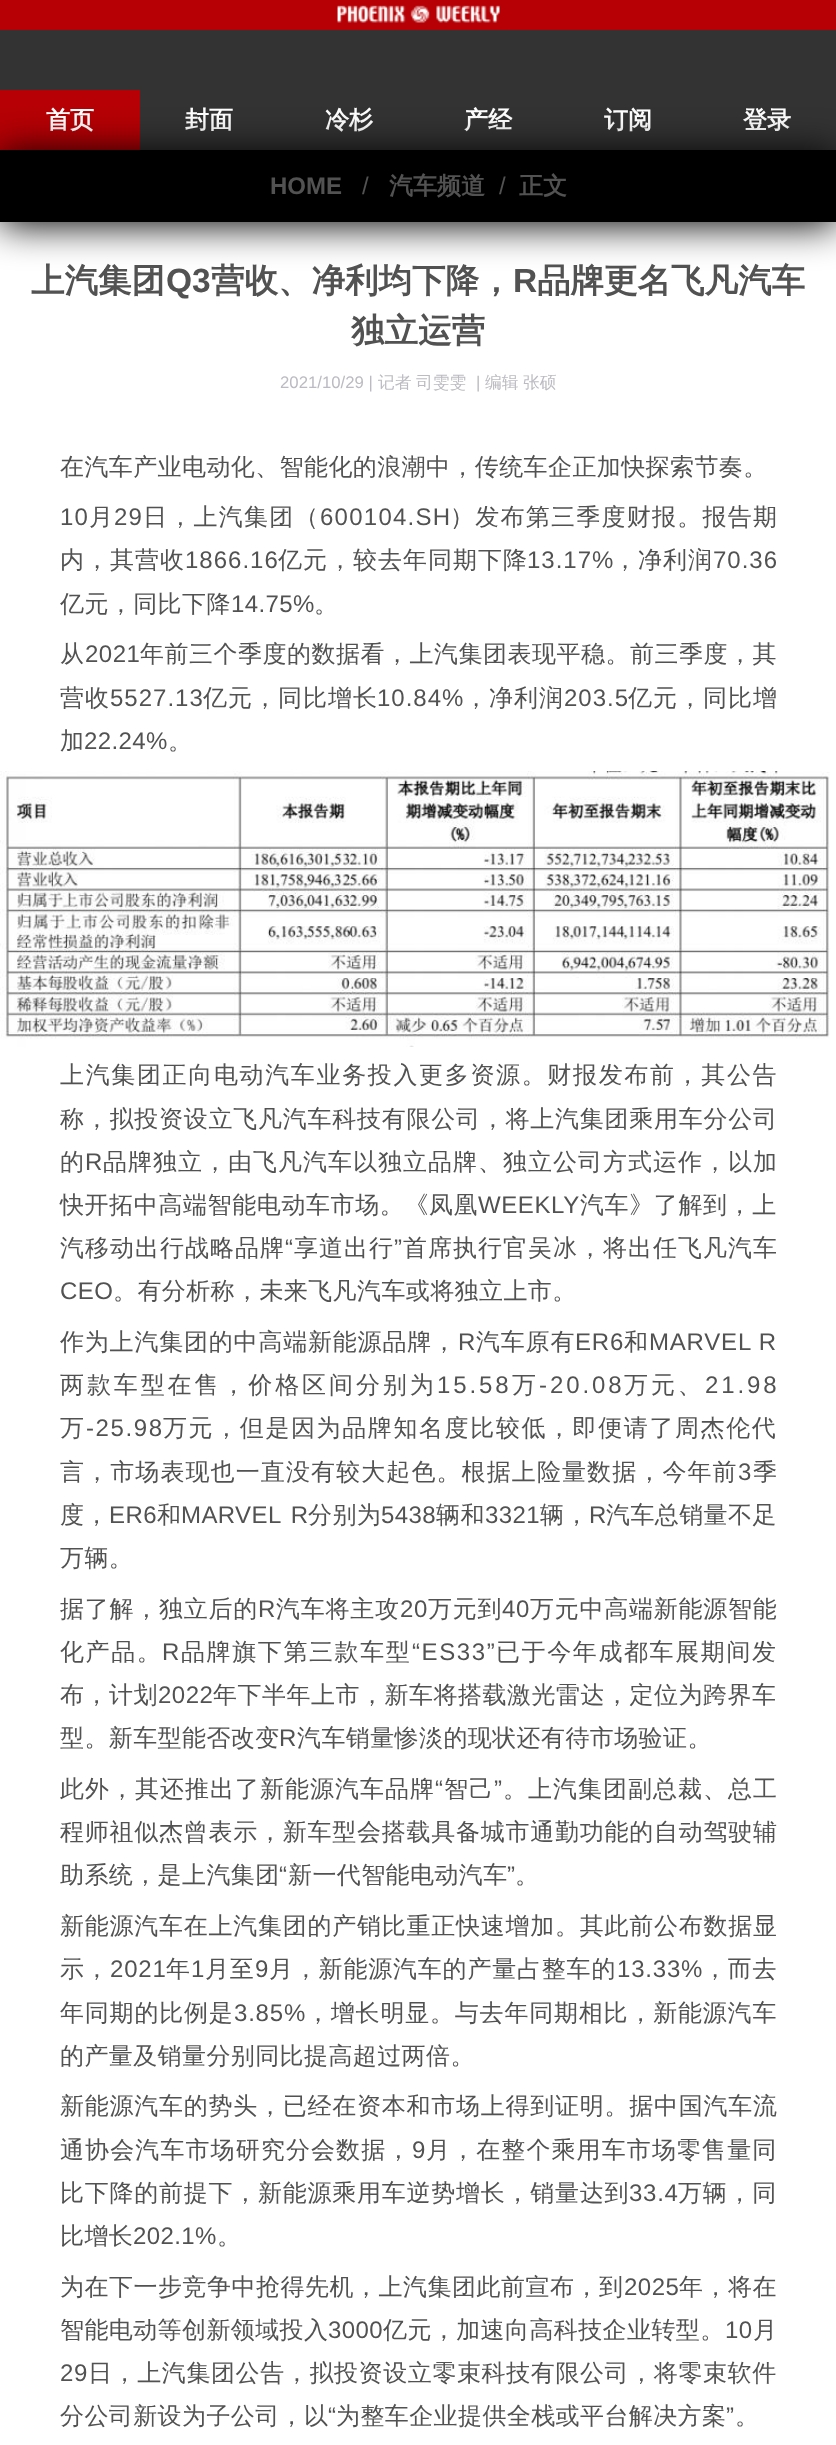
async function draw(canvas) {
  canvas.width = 836
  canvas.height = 2445
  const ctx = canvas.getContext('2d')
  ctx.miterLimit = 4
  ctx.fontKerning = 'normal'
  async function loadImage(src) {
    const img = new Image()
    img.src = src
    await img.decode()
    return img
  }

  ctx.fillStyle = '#fff'
  ctx.fillRect(0, 0, 836, 2445)
  ctx.fillStyle = '#b60005'
  ctx.fillRect(0, 0, 836, 30)
  ctx.drawImage(await loadImage('image0.png'), 337, 5, 163, 18)
  ctx.fillStyle = '#333'
  ctx.fillRect(0, 30, 836, 60)
  ctx.fillRect(140, 90, 696, 60)
  ctx.fillStyle = '#b60005'
  ctx.fillRect(0, 90, 140, 60)
  ctx.font = 'bold 24px WenQuanYi Zen Hei'
  ctx.fillStyle = '#fff'
  ctx.fillText('首页', 46, 128)
  ctx.fillText('封面', 185, 128)
  ctx.fillText('冷杉', 325, 128)
  ctx.fillText('产经', 464, 128)
  ctx.fillText('订阅', 604, 128)
  ctx.fillText('登录', 743, 128)
  ctx.fillStyle = '#000'
  ctx.filter = 'blur(19px)'
  ctx.beginPath()
  ctx.rect(0, 153, 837, 72)
  ctx.fill()
  ctx.filter = 'none'
  ctx.fillRect(0, 150, 836, 72)
  ctx.font = 'bold 24px Liberation Sans'
  ctx.fillStyle = '#525252'
  ctx.fillText('HOME', 270, 194)
  ctx.font = '24px Liberation Sans'
  ctx.fillText('/', 362, 194)
  ctx.font = 'bold 24px WenQuanYi Zen Hei'
  ctx.fillText('汽车频道', 389, 194)
  ctx.font = '24px Liberation Sans'
  ctx.fillText('/', 499, 194)
  ctx.font = 'bold 24px WenQuanYi Zen Hei'
  ctx.fillText('正文', 519, 194)
  ctx.font = 'bold 33.5px WenQuanYi Zen Hei'
  ctx.fillText('上汽集团', 31, 292)
  ctx.font = 'bold 33.5px Liberation Sans'
  ctx.fillText('Q3', 166, 292)
  ctx.font = 'bold 33.5px WenQuanYi Zen Hei'
  ctx.fillText('营收、净利均下降，', 211, 292)
  ctx.font = 'bold 33.5px Liberation Sans'
  ctx.fillText('R', 513, 292)
  ctx.font = 'bold 33.5px WenQuanYi Zen Hei'
  ctx.fillText('品牌更名飞凡汽车', 537, 292)
  ctx.fillText('独立运营', 351, 342)
  ctx.font = '16.75px Liberation Sans'
  ctx.fillStyle = '#bbbbc1'
  ctx.fillText('2021/10/29 |', 280, 388)
  ctx.font = '500 16.75px WenQuanYi Zen Hei'
  ctx.fillText('记者', 378, 388)
  ctx.fillText('司雯雯', 416, 388)
  ctx.font = '16.75px Liberation Sans'
  ctx.fillText('|', 476, 388)
  ctx.font = '500 16.75px WenQuanYi Zen Hei'
  ctx.fillText('编辑', 485, 388)
  ctx.fillText('张硕', 523, 388)
  ctx.letterSpacing = '0.4px'
  ctx.font = '500 24px WenQuanYi Zen Hei'
  ctx.fillStyle = '#525252'
  ctx.fillText('在汽车产业电动化、智能化的浪潮中，传统车企正加快探索节奏。', 60, 475)
  ctx.letterSpacing = '1.25px'
  ctx.font = '24px Liberation Sans'
  ctx.fillText('10', 60, 525)
  ctx.font = '500 24px WenQuanYi Zen Hei'
  ctx.fillText('月', 89, 525)
  ctx.font = '24px Liberation Sans'
  ctx.fillText('29', 114, 525)
  ctx.font = '500 24px WenQuanYi Zen Hei'
  ctx.fillText('日，上汽集团（', 143, 525)
  ctx.font = '24px Liberation Sans'
  ctx.fillText('600104.SH', 320, 525)
  ctx.font = '500 24px WenQuanYi Zen Hei'
  ctx.fillText('）发布第三季度财报。报告期', 450, 525)
  ctx.letterSpacing = '1px'
  ctx.fillText('内，其营收', 60, 568)
  ctx.font = '24px Liberation Sans'
  ctx.fillText('1866.16', 185, 568)
  ctx.font = '500 24px WenQuanYi Zen Hei'
  ctx.fillText('亿元，较去年同期下降', 278, 568)
  ctx.font = '24px Liberation Sans'
  ctx.fillText('13.17%', 527, 568)
  ctx.font = '500 24px WenQuanYi Zen Hei'
  ctx.fillText('，净利润', 613, 568)
  ctx.font = '24px Liberation Sans'
  ctx.fillText('70.36', 713, 568)
  ctx.letterSpacing = '0.4px'
  ctx.font = '500 24px WenQuanYi Zen Hei'
  ctx.fillText('亿元，同比下降', 60, 612)
  ctx.font = '24px Liberation Sans'
  ctx.fillText('14.75%', 231, 612)
  ctx.font = '500 24px WenQuanYi Zen Hei'
  ctx.fillText('。', 314, 612)
  ctx.letterSpacing = '0.5px'
  ctx.fillText('从', 60, 662)
  ctx.font = '24px Liberation Sans'
  ctx.fillText('2021', 85, 662)
  ctx.font = '500 24px WenQuanYi Zen Hei'
  ctx.fillText('年前三个季度的数据看，上汽集团表现平稳。前三季度，其', 140, 662)
  ctx.letterSpacing = '1px'
  ctx.fillText('营收', 60, 706)
  ctx.font = '24px Liberation Sans'
  ctx.fillText('5527.13', 110, 706)
  ctx.font = '500 24px WenQuanYi Zen Hei'
  ctx.fillText('亿元，同比增长', 203, 706)
  ctx.font = '24px Liberation Sans'
  ctx.fillText('10.84%', 377, 706)
  ctx.font = '500 24px WenQuanYi Zen Hei'
  ctx.fillText('，净利润', 464, 706)
  ctx.font = '24px Liberation Sans'
  ctx.fillText('203.5', 564, 706)
  ctx.font = '500 24px WenQuanYi Zen Hei'
  ctx.fillText('亿元，同比增', 628, 706)
  ctx.letterSpacing = '0.4px'
  ctx.fillText('加', 60, 749)
  ctx.font = '24px Liberation Sans'
  ctx.fillText('22.24%', 84, 749)
  ctx.font = '500 24px WenQuanYi Zen Hei'
  ctx.fillText('。', 168, 749)
  ctx.drawImage(await loadImage('image1.png'), 0, 771, 830, 276)
  ctx.letterSpacing = '1.65px'
  ctx.fillText('上汽集团正向电动汽车业务投入更多资源。财报发布前，其公告', 60, 1083)
  ctx.letterSpacing = '0.75px'
  ctx.fillText('称，拟投资设立飞凡汽车科技有限公司，将上汽集团乘用车分公司', 60, 1127)
  ctx.letterSpacing = '1px'
  ctx.fillText('的', 60, 1170)
  ctx.font = '24px Liberation Sans'
  ctx.fillText('R', 85, 1170)
  ctx.font = '500 24px WenQuanYi Zen Hei'
  ctx.fillText('品牌独立，由飞凡汽车以独立品牌、独立公司方式运作，以加', 103, 1170)
  ctx.letterSpacing = '0.6px'
  ctx.fillText('快开拓中高端智能电动车市场。《凤凰', 60, 1213)
  ctx.font = '24px Liberation Sans'
  ctx.fillText('WEEKLY', 478, 1213)
  ctx.font = '500 24px WenQuanYi Zen Hei'
  ctx.fillText('汽车》了解到，上', 580, 1213)
  ctx.letterSpacing = '1px'
  ctx.fillText('汽移动出行战略品牌', 60, 1256)
  ctx.font = '24px Liberation Sans'
  ctx.fillText('“', 285, 1256)
  ctx.font = '500 24px WenQuanYi Zen Hei'
  ctx.fillText('享道出行', 294, 1256)
  ctx.font = '24px Liberation Sans'
  ctx.fillText('”', 394, 1256)
  ctx.font = '500 24px WenQuanYi Zen Hei'
  ctx.fillText('首席执行官吴冰，将出任飞凡汽车', 403, 1256)
  ctx.letterSpacing = '0.4px'
  ctx.font = '24px Liberation Sans'
  ctx.fillText('CEO', 60, 1299)
  ctx.font = '500 24px WenQuanYi Zen Hei'
  ctx.fillText('。有分析称，未来飞凡汽车或将独立上市。', 113, 1299)
  ctx.letterSpacing = '0.8px'
  ctx.fillText('作为上汽集团的中高端新能源品牌，', 60, 1350)
  ctx.font = '24px Liberation Sans'
  ctx.fillText('R', 458, 1350)
  ctx.font = '500 24px WenQuanYi Zen Hei'
  ctx.fillText('汽车原有', 476, 1350)
  ctx.font = '24px Liberation Sans'
  ctx.fillText('ER6', 575, 1350)
  ctx.font = '500 24px WenQuanYi Zen Hei'
  ctx.fillText('和', 624, 1350)
  ctx.font = '24px Liberation Sans'
  ctx.fillText('MARVEL R', 649, 1350)
  ctx.letterSpacing = '2.9px'
  ctx.font = '500 24px WenQuanYi Zen Hei'
  ctx.fillText('两款车型在售，价格区间分别为', 60, 1393)
  ctx.font = '24px Liberation Sans'
  ctx.fillText('15.58', 437, 1393)
  ctx.font = '500 24px WenQuanYi Zen Hei'
  ctx.fillText('万', 512, 1393)
  ctx.font = '24px Liberation Sans'
  ctx.fillText('-20.08', 539, 1393)
  ctx.font = '500 24px WenQuanYi Zen Hei'
  ctx.fillText('万元、', 624, 1393)
  ctx.font = '24px Liberation Sans'
  ctx.fillText('21.98', 705, 1393)
  ctx.letterSpacing = '1.6px'
  ctx.font = '500 24px WenQuanYi Zen Hei'
  ctx.fillText('万', 60, 1436)
  ctx.font = '24px Liberation Sans'
  ctx.fillText('-25.98', 86, 1436)
  ctx.font = '500 24px WenQuanYi Zen Hei'
  ctx.fillText('万元，但是因为品牌知名度比较低，即便请了周杰伦代', 163, 1436)
  ctx.letterSpacing = '1.1px'
  ctx.fillText('言，市场表现也一直没有较大起色。根据上险量数据，今年前', 60, 1480)
  ctx.font = '24px Liberation Sans'
  ctx.fillText('3', 738, 1480)
  ctx.font = '500 24px WenQuanYi Zen Hei'
  ctx.fillText('季', 753, 1480)
  ctx.letterSpacing = '0.4px'
  ctx.fillText('度，', 60, 1523)
  ctx.font = '24px Liberation Sans'
  ctx.fillText('ER6', 109, 1523)
  ctx.font = '500 24px WenQuanYi Zen Hei'
  ctx.fillText('和', 157, 1523)
  ctx.wordSpacing = '3px'
  ctx.font = '24px Liberation Sans'
  ctx.fillText('MARVEL R', 181, 1523)
  ctx.wordSpacing = '0px'
  ctx.font = '500 24px WenQuanYi Zen Hei'
  ctx.fillText('分别为', 308, 1523)
  ctx.font = '24px Liberation Sans'
  ctx.fillText('5438', 381, 1523)
  ctx.font = '500 24px WenQuanYi Zen Hei'
  ctx.fillText('辆和', 436, 1523)
  ctx.font = '24px Liberation Sans'
  ctx.fillText('3321', 485, 1523)
  ctx.font = '500 24px WenQuanYi Zen Hei'
  ctx.fillText('辆，', 540, 1523)
  ctx.font = '24px Liberation Sans'
  ctx.fillText('R', 589, 1523)
  ctx.font = '500 24px WenQuanYi Zen Hei'
  ctx.fillText('汽车总销量不足', 606, 1523)
  ctx.fillText('万辆。', 60, 1566)
  ctx.letterSpacing = '0.75px'
  ctx.fillText('据了解，独立后的', 60, 1617)
  ctx.font = '24px Liberation Sans'
  ctx.fillText('R', 258, 1617)
  ctx.font = '500 24px WenQuanYi Zen Hei'
  ctx.fillText('汽车将主攻', 276, 1617)
  ctx.font = '24px Liberation Sans'
  ctx.fillText('20', 400, 1617)
  ctx.font = '500 24px WenQuanYi Zen Hei'
  ctx.fillText('万元到', 428, 1617)
  ctx.font = '24px Liberation Sans'
  ctx.fillText('40', 502, 1617)
  ctx.font = '500 24px WenQuanYi Zen Hei'
  ctx.fillText('万元中高端新能源智能', 530, 1617)
  ctx.letterSpacing = '1.6px'
  ctx.fillText('化产品。', 60, 1660)
  ctx.font = '24px Liberation Sans'
  ctx.fillText('R', 162, 1660)
  ctx.font = '500 24px WenQuanYi Zen Hei'
  ctx.fillText('品牌旗下第三款车型', 181, 1660)
  ctx.font = '24px Liberation Sans'
  ctx.fillText('“ES33”', 412, 1660)
  ctx.font = '500 24px WenQuanYi Zen Hei'
  ctx.fillText('已于今年成都车展期间发', 496, 1660)
  ctx.letterSpacing = '0.5px'
  ctx.fillText('布，计划', 60, 1703)
  ctx.font = '24px Liberation Sans'
  ctx.fillText('2022', 158, 1703)
  ctx.font = '500 24px WenQuanYi Zen Hei'
  ctx.fillText('年下半年上市，新车将搭载激光雷达，定位为跨界车', 213, 1703)
  ctx.letterSpacing = '0.4px'
  ctx.fillText('型。新车型能否改变', 60, 1746)
  ctx.font = '24px Liberation Sans'
  ctx.fillText('R', 279, 1746)
  ctx.font = '500 24px WenQuanYi Zen Hei'
  ctx.fillText('汽车销量惨淡的现状还有待市场验证。', 297, 1746)
  ctx.letterSpacing = '1px'
  ctx.fillText('此外，其还推出了新能源汽车品牌', 60, 1797)
  ctx.font = '24px Liberation Sans'
  ctx.fillText('“', 435, 1797)
  ctx.font = '500 24px WenQuanYi Zen Hei'
  ctx.fillText('智己', 444, 1797)
  ctx.font = '24px Liberation Sans'
  ctx.fillText('”', 494, 1797)
  ctx.font = '500 24px WenQuanYi Zen Hei'
  ctx.fillText('。上汽集团副总裁、总工', 503, 1797)
  ctx.letterSpacing = '0.75px'
  ctx.fillText('程师祖似杰曾表示，新车型会搭载具备城市通勤功能的自动驾驶辅', 60, 1840)
  ctx.letterSpacing = '0.4px'
  ctx.fillText('助系统，是上汽集团', 60, 1883)
  ctx.font = '24px Liberation Sans'
  ctx.fillText('“', 279, 1883)
  ctx.font = '500 24px WenQuanYi Zen Hei'
  ctx.fillText('新一代智能电动汽车', 288, 1883)
  ctx.font = '24px Liberation Sans'
  ctx.fillText('”', 507, 1883)
  ctx.font = '500 24px WenQuanYi Zen Hei'
  ctx.fillText('。', 515, 1883)
  ctx.letterSpacing = '0.75px'
  ctx.fillText('新能源汽车在上汽集团的产销比重正快速增加。其此前公布数据显', 60, 1934)
  ctx.letterSpacing = '0.8px'
  ctx.fillText('示，', 60, 1977)
  ctx.font = '24px Liberation Sans'
  ctx.fillText('2021', 110, 1977)
  ctx.font = '500 24px WenQuanYi Zen Hei'
  ctx.fillText('年', 166, 1977)
  ctx.font = '24px Liberation Sans'
  ctx.fillText('1', 191, 1977)
  ctx.font = '500 24px WenQuanYi Zen Hei'
  ctx.fillText('月至', 205, 1977)
  ctx.font = '24px Liberation Sans'
  ctx.fillText('9', 255, 1977)
  ctx.font = '500 24px WenQuanYi Zen Hei'
  ctx.fillText('月，新能源汽车的产量占整车的', 269, 1977)
  ctx.font = '24px Liberation Sans'
  ctx.fillText('13.33%', 617, 1977)
  ctx.font = '500 24px WenQuanYi Zen Hei'
  ctx.fillText('，而去', 703, 1977)
  ctx.fillText('年同期的比例是', 60, 2021)
  ctx.font = '24px Liberation Sans'
  ctx.fillText('3.85%', 234, 2021)
  ctx.font = '500 24px WenQuanYi Zen Hei'
  ctx.fillText('，增长明显。与去年同期相比，新能源汽车', 306, 2021)
  ctx.letterSpacing = '0.4px'
  ctx.fillText('的产量及销量分别同比提高超过两倍。', 60, 2064)
  ctx.letterSpacing = '0.75px'
  ctx.fillText('新能源汽车的势头，已经在资本和市场上得到证明。据中国汽车流', 60, 2114)
  ctx.letterSpacing = '1.1px'
  ctx.fillText('通协会汽车市场研究分会数据，', 60, 2158)
  ctx.font = '24px Liberation Sans'
  ctx.fillText('9', 412, 2158)
  ctx.font = '500 24px WenQuanYi Zen Hei'
  ctx.fillText('月，在整个乘用车市场零售量同', 426, 2158)
  ctx.letterSpacing = '0.75px'
  ctx.fillText('比下降的前提下，新能源乘用车逆势增长，销量达到', 60, 2201)
  ctx.font = '24px Liberation Sans'
  ctx.fillText('33.4', 629, 2201)
  ctx.font = '500 24px WenQuanYi Zen Hei'
  ctx.fillText('万辆，同', 678, 2201)
  ctx.letterSpacing = '0.4px'
  ctx.fillText('比增长', 60, 2244)
  ctx.font = '24px Liberation Sans'
  ctx.fillText('202.1%', 133, 2244)
  ctx.font = '500 24px WenQuanYi Zen Hei'
  ctx.fillText('。', 217, 2244)
  ctx.letterSpacing = '0.5px'
  ctx.fillText('为在下一步竞争中抢得先机，上汽集团此前宣布，到', 60, 2295)
  ctx.font = '24px Liberation Sans'
  ctx.fillText('2025', 624, 2295)
  ctx.font = '500 24px WenQuanYi Zen Hei'
  ctx.fillText('年，将在', 679, 2295)
  ctx.letterSpacing = '0.4px'
  ctx.fillText('智能电动等创新领域投入', 60, 2338)
  ctx.font = '24px Liberation Sans'
  ctx.fillText('3000', 328, 2338)
  ctx.font = '500 24px WenQuanYi Zen Hei'
  ctx.fillText('亿元，加速向高科技企业转型。', 383, 2338)
  ctx.font = '24px Liberation Sans'
  ctx.fillText('10', 725, 2338)
  ctx.font = '500 24px WenQuanYi Zen Hei'
  ctx.fillText('月', 753, 2338)
  ctx.letterSpacing = '0.6px'
  ctx.font = '24px Liberation Sans'
  ctx.fillText('29', 60, 2381)
  ctx.font = '500 24px WenQuanYi Zen Hei'
  ctx.fillText('日，上汽集团公告，拟投资设立零束科技有限公司，将零束软件', 88, 2381)
  ctx.letterSpacing = '0.4px'
  ctx.fillText('分公司新设为子公司，以', 60, 2424)
  ctx.font = '24px Liberation Sans'
  ctx.fillText('“', 328, 2424)
  ctx.font = '500 24px WenQuanYi Zen Hei'
  ctx.fillText('为整车企业提供全栈或平台解决方案', 336, 2424)
  ctx.font = '24px Liberation Sans'
  ctx.fillText('”', 726, 2424)
  ctx.font = '500 24px WenQuanYi Zen Hei'
  ctx.fillText('。', 735, 2424)
}

draw(document.querySelector('canvas'))
